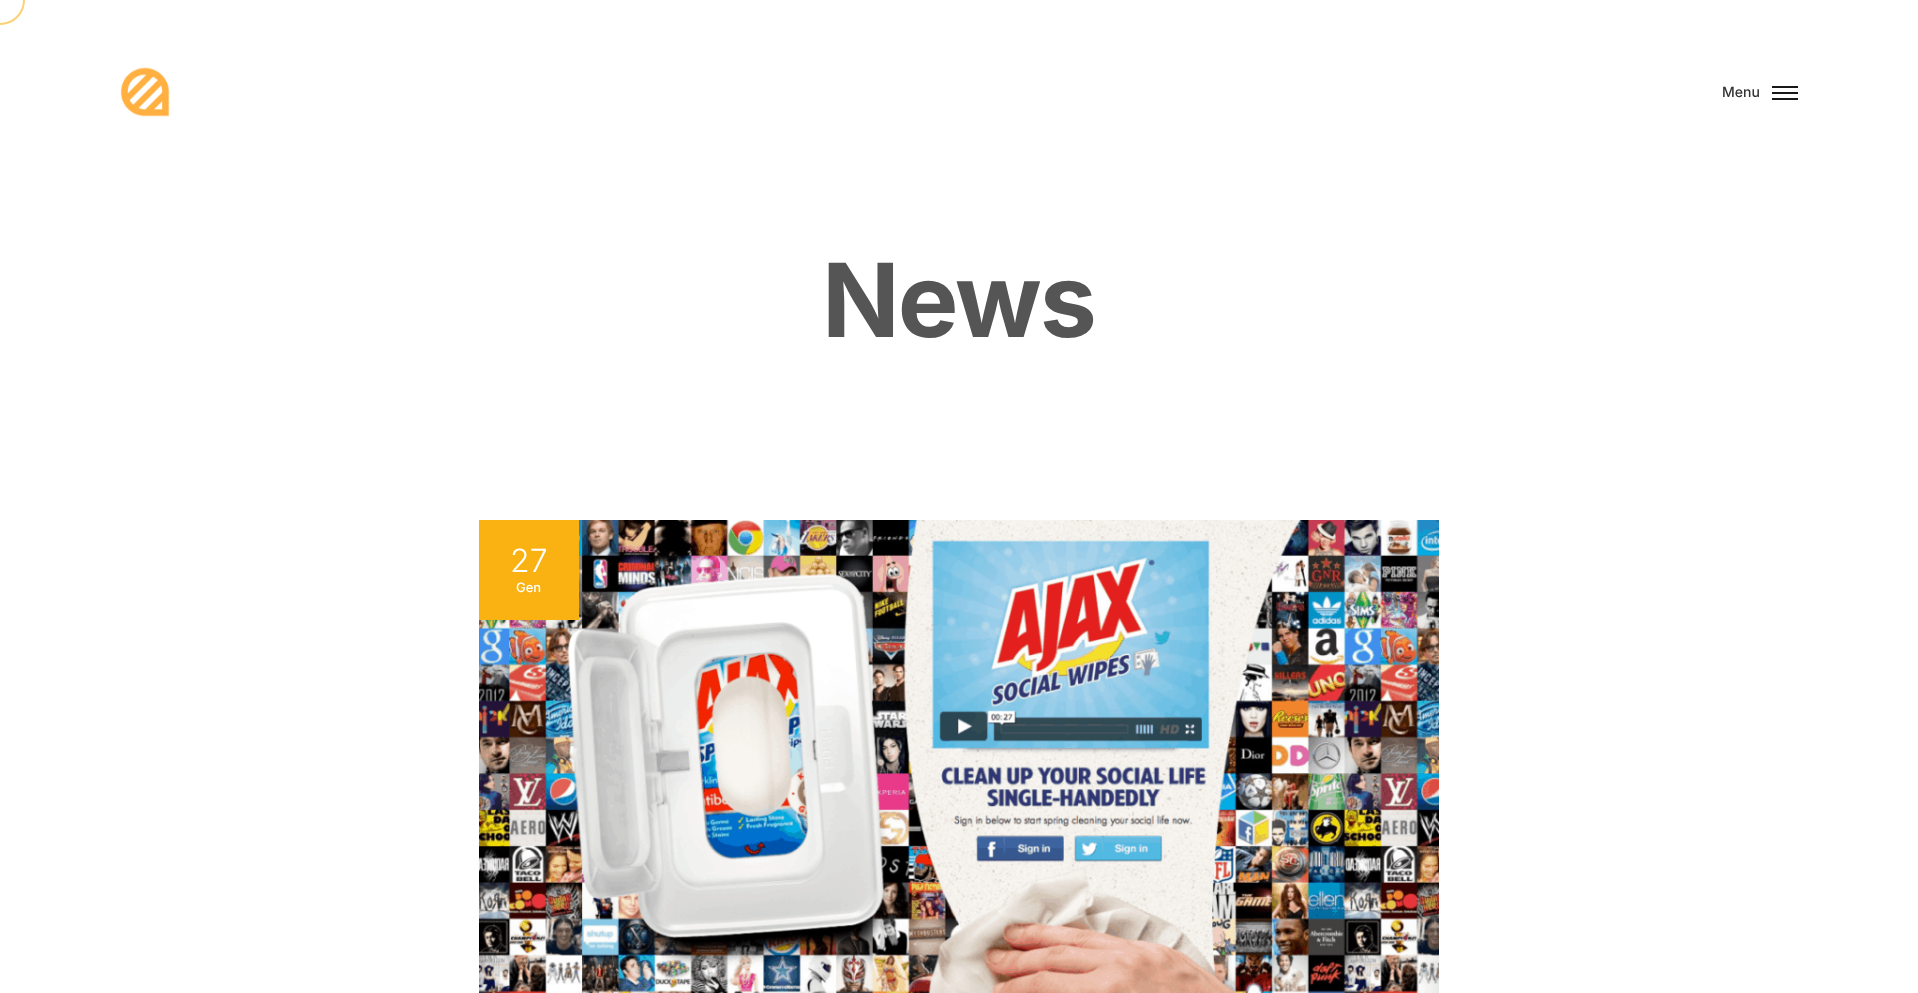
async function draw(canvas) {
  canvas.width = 1918
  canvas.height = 993
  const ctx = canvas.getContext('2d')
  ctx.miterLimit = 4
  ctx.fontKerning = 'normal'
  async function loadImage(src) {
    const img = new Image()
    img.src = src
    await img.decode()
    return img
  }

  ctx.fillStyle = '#fff'
  ctx.fillRect(0, 0, 1918, 993)
  ctx.beginPath()
  ctx.arc(0, 0, 24, 0, 2 * Math.PI)
  ctx.strokeStyle = '#fcd171'
  ctx.lineWidth = 2
  ctx.stroke()
  ctx.drawImage(await loadImage('image0.png'), 120, 67, 50, 50)
  ctx.font = '500 14px Inter'
  ctx.fillStyle = '#333'
  ctx.fillText('Menu', 1722, 97)
  ctx.fillStyle = '#181818'
  ctx.fillRect(1772, 86, 26, 2)
  ctx.fillRect(1772, 92, 26, 2)
  ctx.fillRect(1772, 98, 26, 2)
  ctx.letterSpacing = '-2px'
  ctx.font = 'bold 102px Inter'
  ctx.fillStyle = '#555'
  ctx.fillText('News', 822, 337)
  ctx.drawImage(await loadImage('image1.png'), 479, 520, 960, 473)
  ctx.fillStyle = '#fab212'
  ctx.fillRect(479, 520, 100, 100)
  ctx.letterSpacing = '0px'
  ctx.font = '300 32px Inter'
  ctx.fillStyle = '#fff'
  ctx.fillText('27', 510, 572)
  ctx.font = '500 13px Inter'
  ctx.fillText('Gen', 516, 592)
}

draw(document.querySelector('canvas'))
